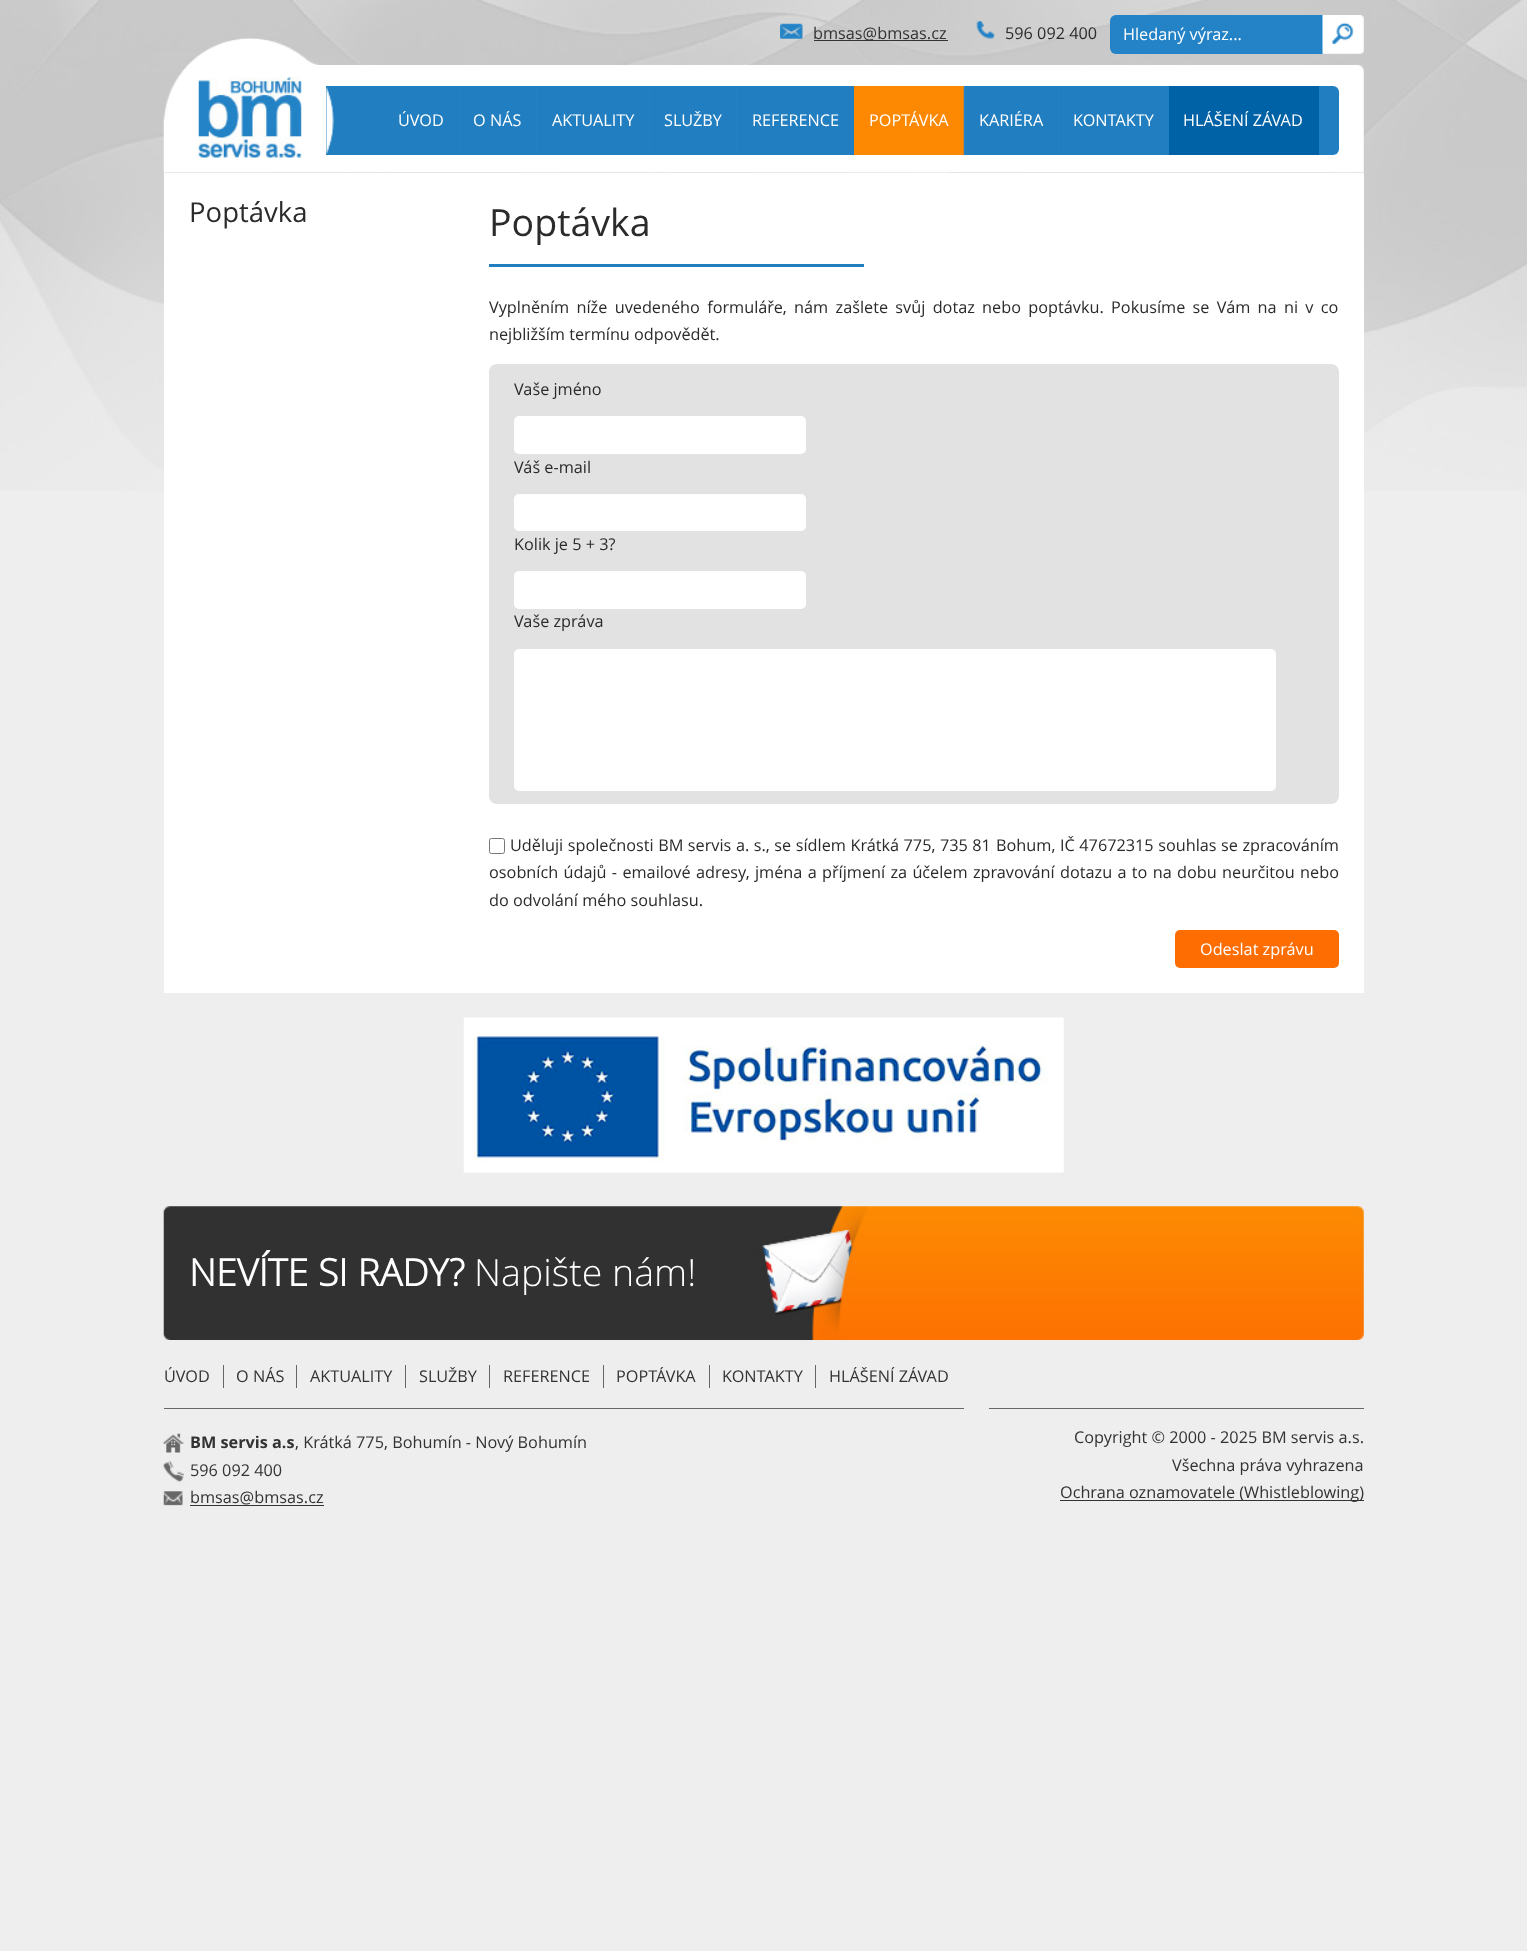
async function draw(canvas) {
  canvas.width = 1527
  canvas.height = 1951
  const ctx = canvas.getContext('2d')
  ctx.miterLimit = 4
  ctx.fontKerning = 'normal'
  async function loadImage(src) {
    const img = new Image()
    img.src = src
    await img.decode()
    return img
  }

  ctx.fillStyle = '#eee'
  ctx.fillRect(0, 0, 1527, 1951)
  ctx.drawImage(await loadImage('image0.png'), 0, 0, 1527, 491)
  ctx.drawImage(await loadImage('image1.png'), 187, 37, 132, 28)
  ctx.drawImage(await loadImage('image2.png'), 780, 23, 23, 16)
  ctx.fillStyle = '#333'
  ctx.fillRect(814, 40, 134, 1)
  ctx.font = '16.25px Open Sans'
  ctx.fillText('bmsas@bmsas.cz', 813, 39)
  ctx.drawImage(await loadImage('image3.png'), 976, 21, 19, 18)
  ctx.fillStyle = '#2b2b2b'
  ctx.fillText('596 092 400', 1005, 39)
  ctx.fillStyle = '#2383c6'
  ctx.beginPath()
  ctx.roundRect(1110, 15, 213, 39, [6, 0, 0, 6])
  ctx.fill()
  ctx.fillStyle = '#fff'
  ctx.fillText('Hledaný výraz...', 1123, 40)
  ctx.drawImage(await loadImage('image4.png'), 1322, 15, 42, 39)
  ctx.drawImage(await loadImage('image5.png'), 163, 65, 1201, 108)
  ctx.drawImage(await loadImage('image6.png'), 198, 77, 104, 81)
  ctx.fillStyle = '#217ec0'
  ctx.beginPath()
  ctx.roundRect(326, 86, 1013, 69, [0, 6, 6, 0])
  ctx.fill()
  ctx.drawImage(await loadImage('image7.png'), 326, 87, 8, 67)
  ctx.fillStyle = '#fff'
  ctx.fillText('ÚVOD', 398, 126)
  ctx.drawImage(await loadImage('image8.png'), 459, 86, 1, 67)
  ctx.fillText('O NÁS', 473, 126)
  ctx.fillStyle = '#2381c5'
  ctx.fillRect(536, 87, 1, 66)
  ctx.fillStyle = '#fff'
  ctx.fillText('AKTUALITY', 552, 126)
  ctx.drawImage(await loadImage('image8.png'), 649, 86, 1, 67)
  ctx.fillText('SLUŽBY', 664, 126)
  ctx.fillStyle = '#2381c5'
  ctx.fillRect(736, 87, 1, 66)
  ctx.fillStyle = '#fff'
  ctx.fillText('REFERENCE', 752, 126)
  ctx.fillStyle = '#fd8902'
  ctx.fillRect(854, 86, 110, 69)
  ctx.fillStyle = '#fff'
  ctx.fillText('POPTÁVKA', 869, 126)
  ctx.drawImage(await loadImage('image9.png'), 963, 86, 2, 69)
  ctx.fillText('KARIÉRA', 979, 126)
  ctx.fillStyle = '#2381c5'
  ctx.fillRect(1058, 87, 1, 66)
  ctx.fillStyle = '#fff'
  ctx.fillText('KONTAKTY', 1073, 126)
  ctx.fillStyle = '#0062a6'
  ctx.fillRect(1169, 86, 150, 69)
  ctx.fillStyle = '#fff'
  ctx.fillText('HLÁŠENÍ ZÁVAD', 1183, 126)
  ctx.fillRect(164, 173, 1200, 820)
  ctx.font = '27.5px Open Sans'
  ctx.fillStyle = '#2b2b2b'
  ctx.fillText('Poptávka', 189, 222)
  ctx.font = '37.5px Open Sans'
  ctx.fillText('Poptávka', 489, 236)
  ctx.fillStyle = '#217ec0'
  ctx.fillRect(489, 264, 375, 3)
  ctx.wordSpacing = '3.1px'
  ctx.font = '16.25px Open Sans'
  ctx.fillStyle = '#2b2b2b'
  ctx.fillText('Vyplněním níže uvedeného formuláře, nám zašlete svůj dotaz nebo poptávku. Pokusíme se Vám na ni v co', 489, 313)
  ctx.wordSpacing = '0px'
  ctx.fillText('nejbližším termínu odpovědět.', 489, 340)
  ctx.fillStyle = '#e2e2e2'
  ctx.beginPath()
  ctx.roundRect(489, 364, 850, 440, 8)
  ctx.fill()
  ctx.fillStyle = '#2b2b2b'
  ctx.fillText('Vaše jméno', 514, 395)
  ctx.fillStyle = '#fff'
  ctx.beginPath()
  ctx.roundRect(514, 416, 292, 38, 5)
  ctx.fill()
  ctx.fillStyle = '#2b2b2b'
  ctx.fillText('Váš e-mail', 514, 473)
  ctx.fillStyle = '#fff'
  ctx.beginPath()
  ctx.roundRect(514, 494, 292, 37, 5)
  ctx.fill()
  ctx.fillStyle = '#2b2b2b'
  ctx.fillText('Kolik je 5 + 3?', 514, 550)
  ctx.fillStyle = '#fff'
  ctx.beginPath()
  ctx.roundRect(514, 571, 292, 38, 5)
  ctx.fill()
  ctx.fillStyle = '#2b2b2b'
  ctx.fillText('Vaše zpráva', 514, 627)
  ctx.fillStyle = '#fff'
  ctx.beginPath()
  ctx.roundRect(514, 649, 762, 142, 5)
  ctx.fill()
  ctx.beginPath()
  ctx.roundRect(489.5, 838.5, 15, 15, 2)
  ctx.strokeStyle = '#767676'
  ctx.stroke()
  ctx.wordSpacing = '0.3px'
  ctx.fillStyle = '#2b2b2b'
  ctx.fillText('Uděluji společnosti BM servis a. s., se sídlem Krátká 775, 735 81', 510, 851)
  ctx.wordSpacing = '0px'
  ctx.fillText('Bohum,', 996, 851)
  ctx.wordSpacing = '0.3px'
  ctx.fillText('IČ 47672315 souhlas se zpracováním', 1060, 851)
  ctx.wordSpacing = '1.1px'
  ctx.fillText('osobních údajů - emailové adresy, jména a příjmení za účelem zpravování dotazu a to na dobu neurčitou nebo', 489, 878)
  ctx.wordSpacing = '0px'
  ctx.fillText('do odvolání mého souhlasu.', 489, 906)
  ctx.fillStyle = '#fd6d02'
  ctx.beginPath()
  ctx.roundRect(1175, 930, 164, 38, 5)
  ctx.fill()
  ctx.fillStyle = '#fff'
  ctx.fillText('Odeslat zprávu', 1200, 955)
  ctx.drawImage(await loadImage('image10.png'), 463, 1017, 601, 156)
  ctx.drawImage(await loadImage('image11.png'), 163, 1206, 1201, 134)
  ctx.font = 'bold 37.5px Open Sans'
  ctx.fillText('NEVÍTE SI RADY?', 189, 1286)
  ctx.font = '300 37.5px Open Sans'
  ctx.fillText('Napište nám!', 474, 1286)
  ctx.fillStyle = '#666'
  ctx.fillRect(164, 1408, 800, 1)
  ctx.font = '16.25px Open Sans'
  ctx.fillStyle = '#333'
  ctx.fillText('ÚVOD', 164, 1382)
  ctx.fillStyle = '#666'
  ctx.fillRect(223, 1365, 1, 23)
  ctx.fillStyle = '#333'
  ctx.fillText('O NÁS', 236, 1382)
  ctx.fillStyle = '#666'
  ctx.fillRect(296, 1365, 1, 23)
  ctx.fillStyle = '#333'
  ctx.fillText('AKTUALITY', 310, 1382)
  ctx.fillStyle = '#666'
  ctx.fillRect(405, 1365, 1, 23)
  ctx.fillStyle = '#333'
  ctx.fillText('SLUŽBY', 419, 1382)
  ctx.fillStyle = '#666'
  ctx.fillRect(489, 1365, 1, 23)
  ctx.fillStyle = '#333'
  ctx.fillText('REFERENCE', 503, 1382)
  ctx.fillStyle = '#666'
  ctx.fillRect(603, 1365, 1, 23)
  ctx.fillStyle = '#333'
  ctx.fillText('POPTÁVKA', 616, 1382)
  ctx.fillStyle = '#666'
  ctx.fillRect(709, 1365, 1, 23)
  ctx.fillStyle = '#333'
  ctx.fillText('KONTAKTY', 722, 1382)
  ctx.fillStyle = '#666'
  ctx.fillRect(815, 1365, 1, 23)
  ctx.fillStyle = '#333'
  ctx.fillText('HLÁŠENÍ ZÁVAD', 829, 1382)
  ctx.drawImage(await loadImage('image12.png'), 163, 1433, 21, 20)
  ctx.font = 'bold 16.25px "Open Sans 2"'
  ctx.fillText('BM servis a.s', 190, 1448)
  ctx.font = '16.25px Open Sans'
  ctx.fillText(', Krátká 775, Bohumín - Nový Bohumín', 295, 1448)
  ctx.drawImage(await loadImage('image13.png'), 163, 1461, 21, 21)
  ctx.fillText('596 092 400', 190, 1476)
  ctx.drawImage(await loadImage('image14.png'), 163, 1491, 20, 15)
  ctx.fillText('bmsas@bmsas.cz', 190, 1503)
  ctx.fillRect(190, 1505, 134, 1)
  ctx.fillStyle = '#666'
  ctx.fillRect(989, 1408, 375, 1)
  ctx.fillStyle = '#333'
  ctx.fillText('Copyright © 2000 - 2025 BM servis a.s.', 1074, 1443)
  ctx.fillText('Všechna práva vyhrazena', 1172, 1471)
  ctx.fillRect(1060, 1500, 304, 1)
  ctx.fillText('Ochrana oznamovatele (Whistleblowing)', 1060, 1498)
}

draw(document.querySelector('canvas'))
